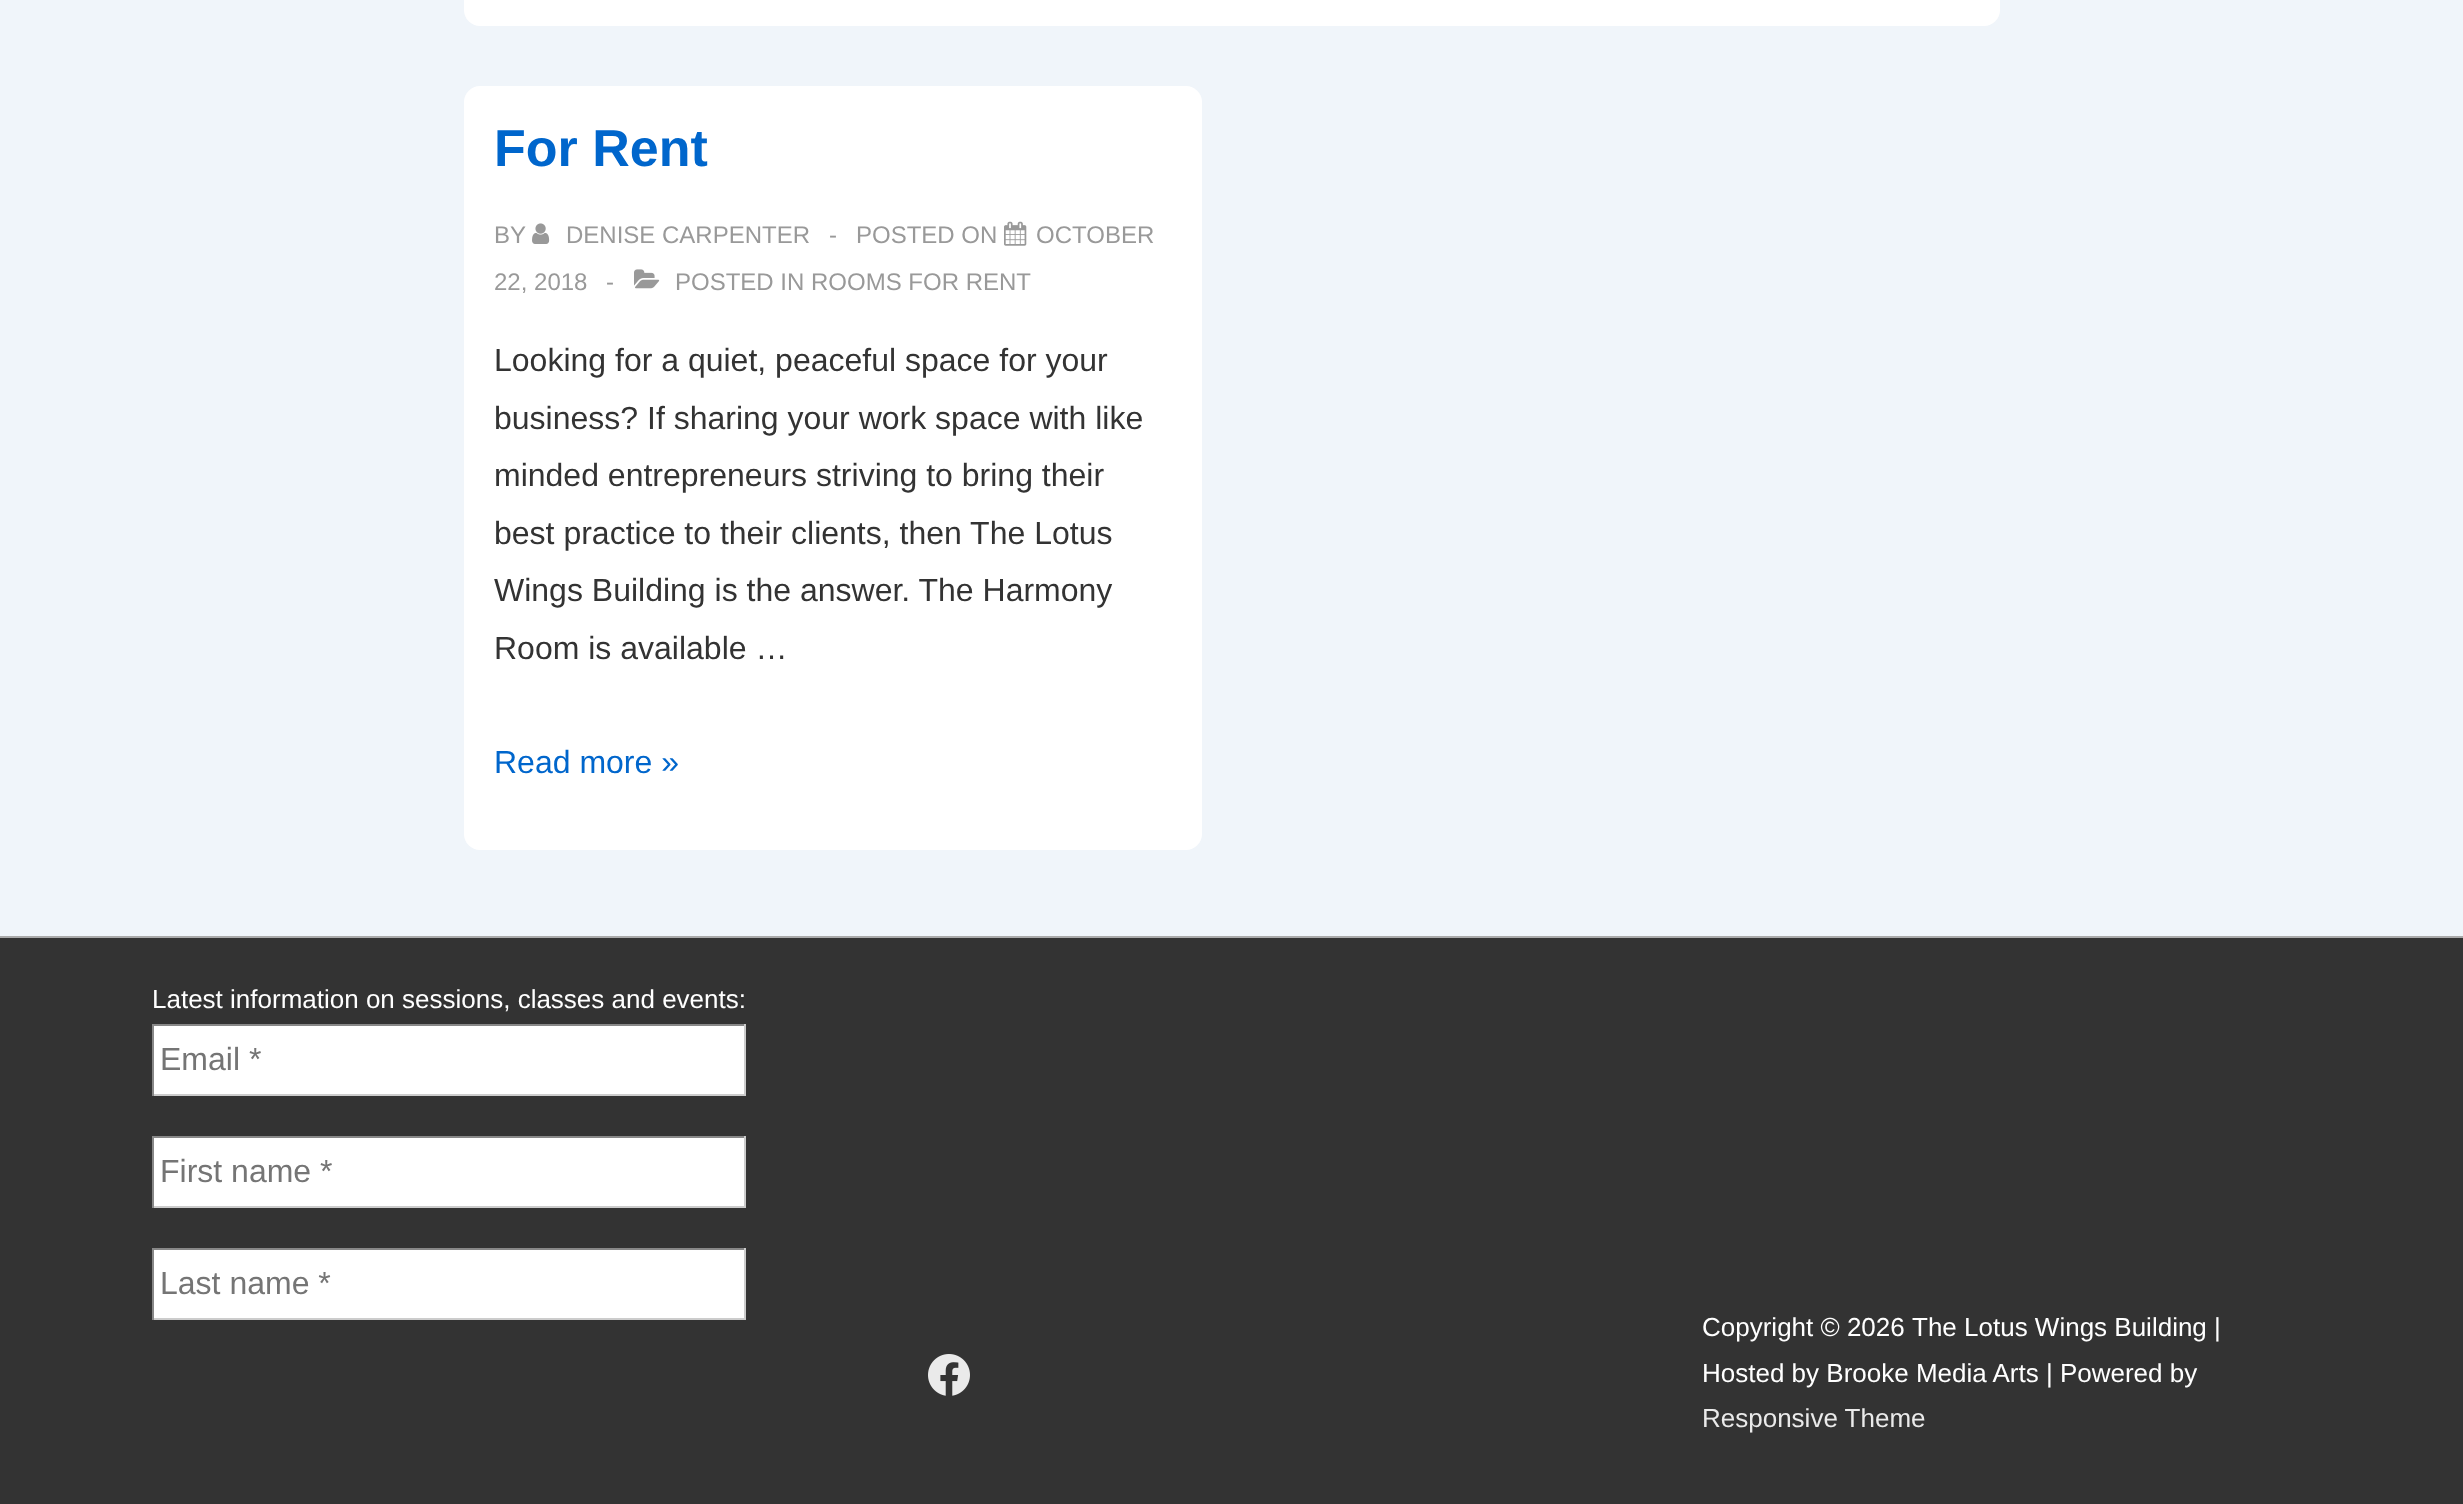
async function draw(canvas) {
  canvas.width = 2463
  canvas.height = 1504
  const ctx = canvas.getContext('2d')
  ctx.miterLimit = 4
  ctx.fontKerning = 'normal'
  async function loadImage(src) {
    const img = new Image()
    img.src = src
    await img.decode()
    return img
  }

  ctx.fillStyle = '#f0f5fa'
  ctx.fillRect(0, 0, 2463, 1504)
  ctx.fillStyle = '#fff'
  ctx.beginPath()
  ctx.roundRect(464, -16, 1536, 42, 16)
  ctx.fill()
  ctx.beginPath()
  ctx.roundRect(464, 86, 738, 764, 16)
  ctx.fill()
  ctx.font = 'bold 52px Liberation Sans'
  ctx.fillStyle = '#06c'
  ctx.fillText('For Rent', 494, 166)
  ctx.font = '24px Liberation Sans'
  ctx.fillStyle = '#999'
  ctx.fillText('BY', 494, 243)
  ctx.drawImage(await loadImage('image0.png'), 532, 223, 18, 21)
  ctx.fillText('DENISE CARPENTER', 566, 243)
  ctx.fillText('-', 829, 243)
  ctx.fillText('POSTED ON', 856, 243)
  ctx.drawImage(await loadImage('image1.png'), 1004, 221, 23, 25)
  ctx.fillText('OCTOBER', 1036, 243)
  ctx.fillText('22, 2018', 494, 290)
  ctx.fillText('-', 606, 290)
  ctx.drawImage(await loadImage('image2.png'), 634, 269, 26, 20)
  ctx.fillText('POSTED IN ROOMS FOR RENT', 675, 290)
  ctx.font = '32px Liberation Sans'
  ctx.fillStyle = '#333'
  ctx.fillText('Looking for a quiet, peaceful space for your', 494, 371)
  ctx.fillText('business? If sharing your work space with like', 494, 429)
  ctx.fillText('minded entrepreneurs striving to bring their', 494, 486)
  ctx.fillText('best practice to their clients, then The Lotus', 494, 544)
  ctx.fillText('Wings Building is the answer. The Harmony', 494, 601)
  ctx.fillText('Room is available …', 494, 659)
  ctx.fillStyle = '#06c'
  ctx.fillText('Read more »', 494, 773)
  ctx.fillStyle = '#333'
  ctx.fillRect(0, 938, 2463, 566)
  ctx.fillStyle = '#aaa'
  ctx.fillRect(0, 936, 2463, 2)
  ctx.font = '26px Liberation Sans'
  ctx.fillStyle = '#fff'
  ctx.fillText('Latest information on sessions, classes and events:', 152, 1008)
  ctx.fillRect(154, 1026, 590, 68)
  ctx.fillStyle = '#888'
  ctx.fillRect(152, 1024, 594, 2)
  ctx.fillStyle = '#ccc'
  ctx.fillRect(744, 1024, 2, 72)
  ctx.fillRect(152, 1094, 594, 2)
  ctx.fillStyle = '#888'
  ctx.fillRect(152, 1024, 2, 72)
  ctx.font = '32px Liberation Sans'
  ctx.fillStyle = '#757575'
  ctx.fillText('Email *', 160, 1070)
  ctx.fillStyle = '#fff'
  ctx.fillRect(154, 1138, 590, 68)
  ctx.fillStyle = '#888'
  ctx.fillRect(152, 1136, 594, 2)
  ctx.fillStyle = '#ccc'
  ctx.fillRect(744, 1136, 2, 72)
  ctx.fillRect(152, 1206, 594, 2)
  ctx.fillStyle = '#888'
  ctx.fillRect(152, 1136, 2, 72)
  ctx.fillStyle = '#757575'
  ctx.fillText('First name *', 160, 1182)
  ctx.fillStyle = '#fff'
  ctx.fillRect(154, 1250, 590, 68)
  ctx.fillStyle = '#888'
  ctx.fillRect(152, 1248, 594, 2)
  ctx.fillStyle = '#ccc'
  ctx.fillRect(744, 1248, 2, 72)
  ctx.fillRect(152, 1318, 594, 2)
  ctx.fillStyle = '#888'
  ctx.fillRect(152, 1248, 2, 72)
  ctx.fillStyle = '#757575'
  ctx.fillText('Last name *', 160, 1294)
  ctx.drawImage(await loadImage('image3.png'), 928, 1354, 42, 42)
  ctx.font = '26px Liberation Sans'
  ctx.fillStyle = '#fff'
  ctx.fillText('Copyright © 2026', 1702, 1336)
  ctx.fillText('The Lotus Wings Building |', 1912, 1336)
  ctx.fillText('Hosted by Brooke Media Arts | Powered by', 1702, 1382)
  ctx.fillStyle = '#eaeaea'
  ctx.fillText('Responsive Theme', 1702, 1427)
}

draw(document.querySelector('canvas'))
